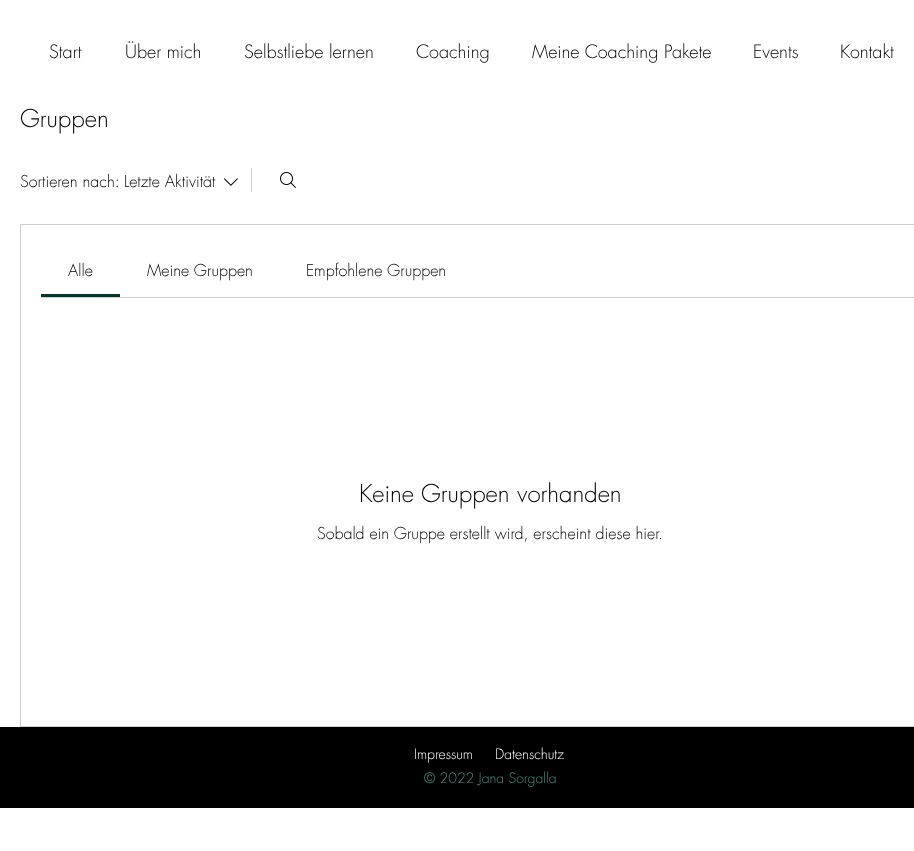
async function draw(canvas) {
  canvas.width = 914
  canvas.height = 851
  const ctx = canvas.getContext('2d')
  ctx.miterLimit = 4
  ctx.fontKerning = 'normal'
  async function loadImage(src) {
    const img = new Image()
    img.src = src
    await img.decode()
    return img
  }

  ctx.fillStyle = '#fff'
  ctx.fillRect(0, 0, 914, 851)
  ctx.font = '300 18px futura'
  ctx.fillStyle = '#000'
  ctx.fillText('Start', 49, 58)
  ctx.fillText('Über mich', 125, 58)
  ctx.fillText('Selbstliebe lernen', 244, 58)
  ctx.fillText('Coaching', 416, 58)
  ctx.fillText('Meine Coaching Pakete', 532, 58)
  ctx.fillText('Events', 753, 58)
  ctx.fillText('Kontakt', 840, 58)
  ctx.font = '300 24px futura'
  ctx.fillText('Gruppen', 20, 127)
  ctx.font = '300 16px futura'
  ctx.fillText('Sortieren nach:', 20, 187)
  ctx.fillText('Letzte Aktivität', 124, 187)
  ctx.drawImage(await loadImage('image0.png'), 223, 178, 15, 8)
  ctx.fillStyle = '#ccc'
  ctx.fillRect(251, 168, 1, 24)
  ctx.drawImage(await loadImage('image1.png'), 280, 172, 16, 16)
  ctx.strokeStyle = '#ccc'
  ctx.strokeRect(20.5, 224.5, 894, 502)
  ctx.fillRect(41, 297, 873, 1)
  ctx.fillStyle = '#01382d'
  ctx.fillRect(41, 294, 79, 3)
  ctx.fillStyle = '#000'
  ctx.fillText('Alle', 68, 276)
  ctx.fillText('Meine Gruppen', 147, 276)
  ctx.fillText('Empfohlene Gruppen', 306, 276)
  ctx.font = '300 24px futura'
  ctx.fillText('Keine Gruppen vorhanden', 359, 502)
  ctx.font = '300 16px futura'
  ctx.fillText('Sobald ein Gruppe erstellt wird, erscheint diese hier.', 317, 539)
  ctx.fillRect(0, 727, 914, 81)
  ctx.font = '300 14px futura'
  ctx.fillStyle = '#fff'
  ctx.fillText('Impressum', 414, 759)
  ctx.fillText('Datenschutz', 495, 759)
  ctx.fillStyle = '#4a9183'
  ctx.fillText('© 2022 Jana Sorgalla', 424, 783)
}

draw(document.querySelector('canvas'))
